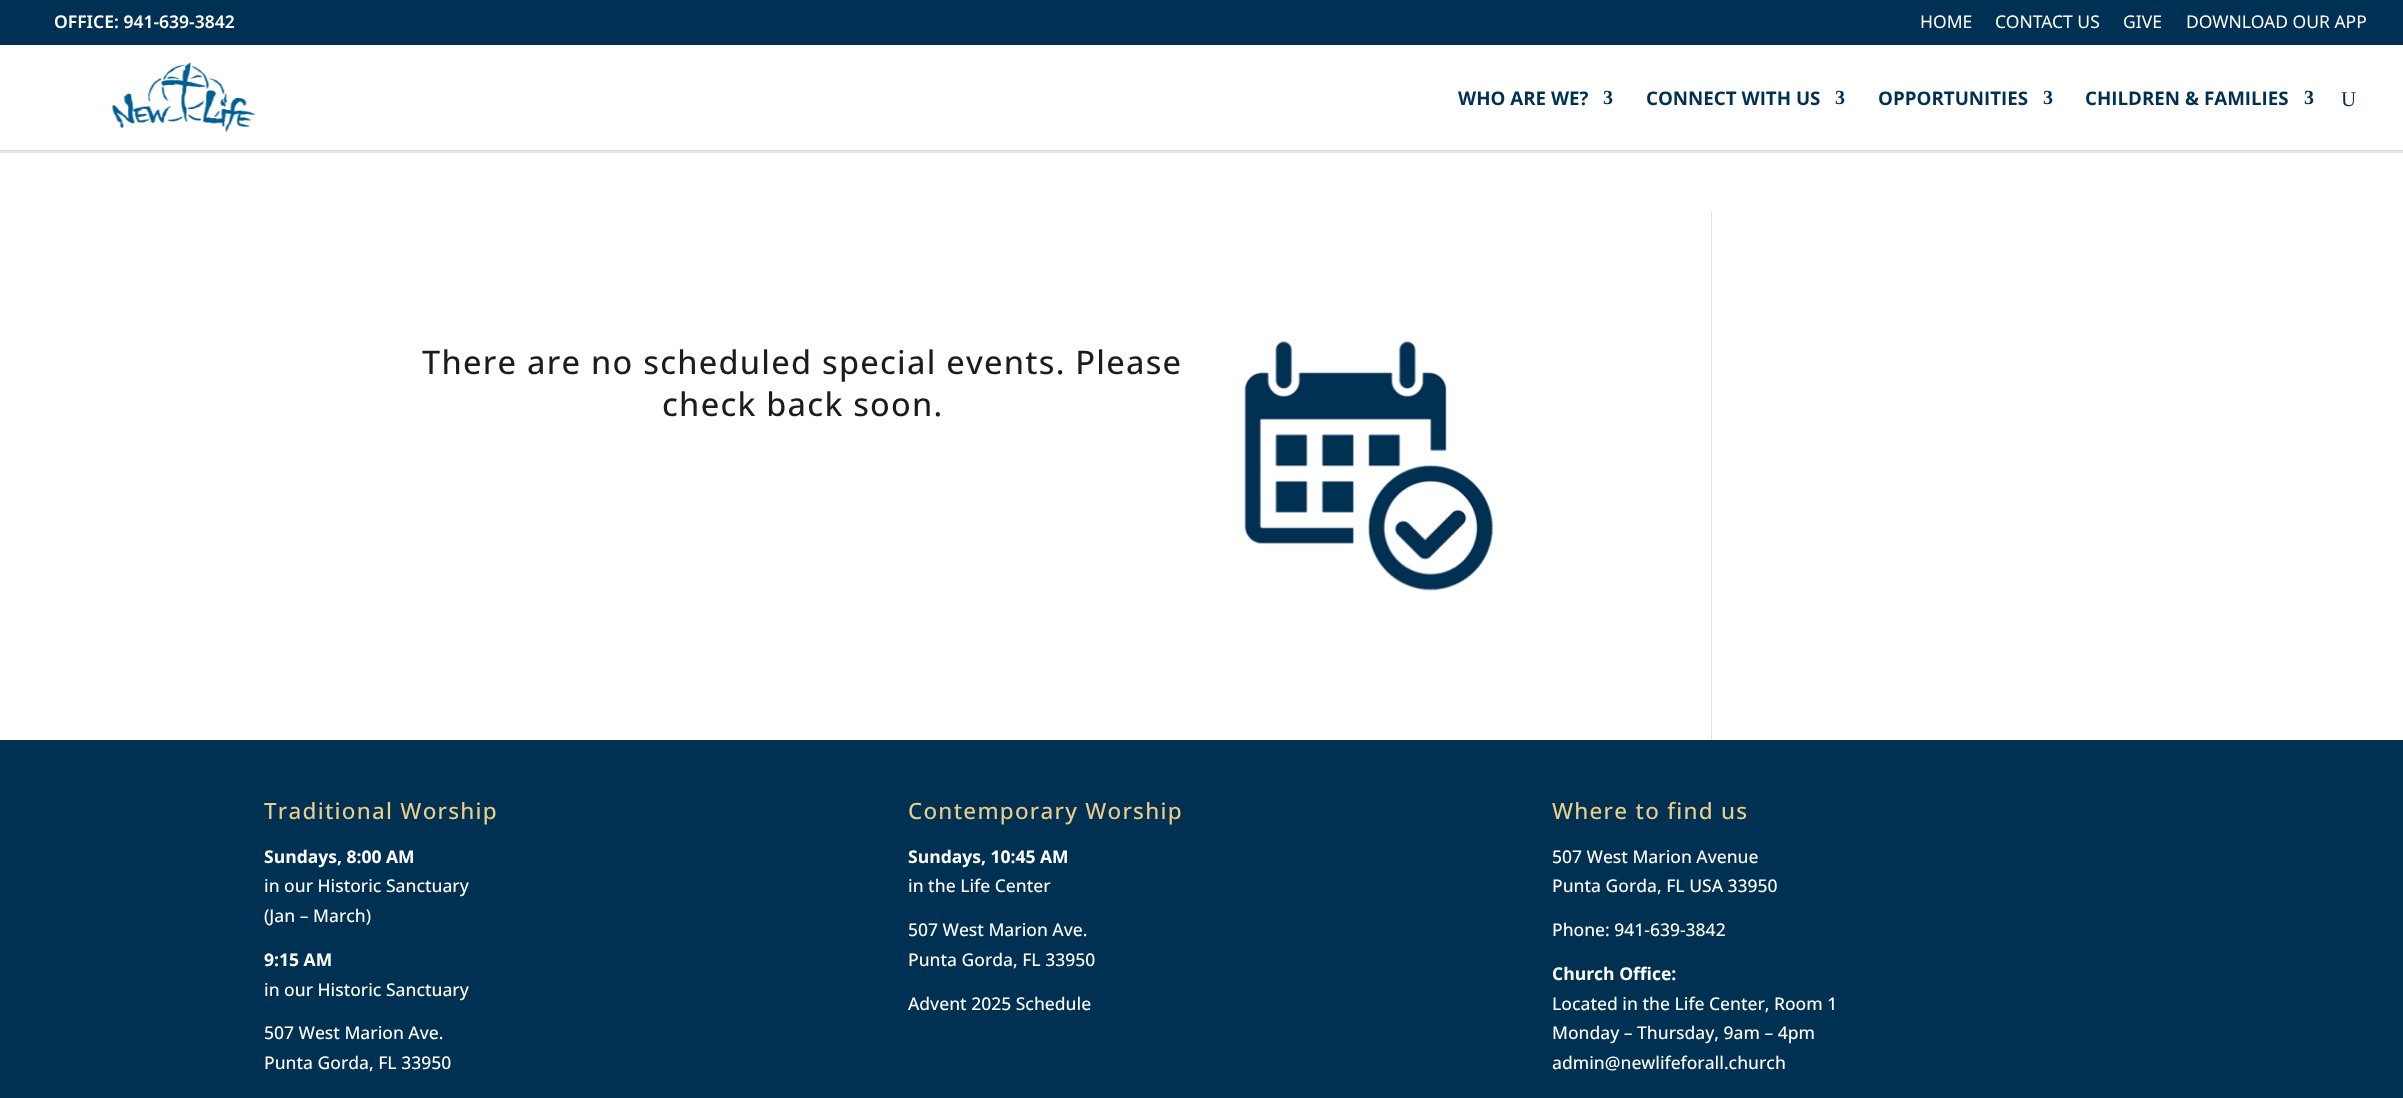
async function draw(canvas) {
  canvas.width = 2403
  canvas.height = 1098
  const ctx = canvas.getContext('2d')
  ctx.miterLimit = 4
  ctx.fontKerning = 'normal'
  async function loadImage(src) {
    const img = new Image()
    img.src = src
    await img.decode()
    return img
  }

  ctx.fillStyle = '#fff'
  ctx.fillRect(0, 0, 2403, 1098)
  ctx.fillStyle = '#003053'
  ctx.fillRect(0, 0, 2403, 45)
  ctx.font = '600 17.5px Noto Sans'
  ctx.fillStyle = '#fff'
  ctx.fillText('OFFICE: 941-639-3842', 54, 28)
  ctx.font = '17.5px Noto Sans'
  ctx.fillText('HOME', 1920, 28)
  ctx.fillText('CONTACT US', 1995, 28)
  ctx.fillText('GIVE', 2123, 28)
  ctx.fillText('DOWNLOAD OUR APP', 2186, 28)
  ctx.fillStyle = '#e6e6e6'
  ctx.beginPath()
  ctx.moveTo(0, 151)
  ctx.lineTo(0, 153)
  ctx.lineTo(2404, 153)
  ctx.lineTo(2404, 46)
  ctx.lineTo(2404, 151)
  ctx.closePath()
  ctx.fill()
  ctx.fillStyle = '#ddd'
  ctx.fillRect(0, 150, 2403, 1)
  ctx.drawImage(await loadImage('image0.png'), 111, 62, 145, 71)
  ctx.font = 'bold 18.75px Open Sans'
  ctx.fillStyle = '#003053'
  ctx.fillText('WHO ARE WE?', 1458, 105)
  ctx.font = 'bold 20px Liberation Serif'
  ctx.fillText('3', 1603, 104)
  ctx.font = 'bold 18.75px Open Sans'
  ctx.fillText('CONNECT WITH US', 1646, 105)
  ctx.font = 'bold 20px Liberation Serif'
  ctx.fillText('3', 1835, 104)
  ctx.font = 'bold 18.75px Open Sans'
  ctx.fillText('OPPORTUNITIES', 1878, 105)
  ctx.font = 'bold 20px Liberation Serif'
  ctx.fillText('3', 2043, 104)
  ctx.font = 'bold 18.75px Open Sans'
  ctx.fillText('CHILDREN & FAMILIES', 2085, 105)
  ctx.font = 'bold 20px Liberation Serif'
  ctx.fillText('3', 2304, 104)
  ctx.font = '21px Liberation Serif'
  ctx.fillText('U', 2341, 106)
  ctx.letterSpacing = '1.25px'
  ctx.font = '500 32.5px Open Sans'
  ctx.fillStyle = '#1c1c1c'
  ctx.fillText('There are no scheduled special events. Please', 422, 374)
  ctx.drawImage(await loadImage('image1.png'), 1244, 341, 250, 251)
  ctx.fillText('check back soon.', 662, 416)
  ctx.fillStyle = '#e2e2e2'
  ctx.fillRect(1711, 211, 1, 529)
  ctx.fillStyle = '#003153'
  ctx.fillRect(0, 740, 2403, 358)
  ctx.font = '500 22.5px Open Sans'
  ctx.fillStyle = '#eccd89'
  ctx.fillText('Traditional Worship', 264, 819)
  ctx.letterSpacing = '0px'
  ctx.font = 'bold 17.5px Open Sans'
  ctx.fillStyle = '#fff'
  ctx.fillText('Sundays, 8:00 AM', 264, 863)
  ctx.font = '500 17.5px Open Sans'
  ctx.fillText('in our Historic Sanctuary', 264, 892)
  ctx.fillText('(Jan – March)', 264, 922)
  ctx.font = 'bold 17.5px Open Sans'
  ctx.fillText('9:15 AM', 264, 966)
  ctx.font = '500 17.5px Open Sans'
  ctx.fillText('in our Historic Sanctuary', 264, 996)
  ctx.fillText('507 West Marion Ave.', 264, 1039)
  ctx.fillText('Punta Gorda, FL 33950', 264, 1069)
  ctx.letterSpacing = '1.25px'
  ctx.font = '500 22.5px Open Sans'
  ctx.fillStyle = '#eccd89'
  ctx.fillText('Contemporary Worship', 908, 819)
  ctx.letterSpacing = '0px'
  ctx.font = 'bold 17.5px Open Sans'
  ctx.fillStyle = '#fff'
  ctx.fillText('Sundays, 10:45 AM', 908, 863)
  ctx.font = '500 17.5px Open Sans'
  ctx.fillText('in the Life Center', 908, 892)
  ctx.fillText('507 West Marion Ave.', 908, 936)
  ctx.fillText('Punta Gorda, FL 33950', 908, 966)
  ctx.fillText('Advent 2025 Schedule', 908, 1010)
  ctx.letterSpacing = '1.25px'
  ctx.font = '500 22.5px Open Sans'
  ctx.fillStyle = '#eccd89'
  ctx.fillText('Where to find us', 1552, 819)
  ctx.letterSpacing = '0px'
  ctx.font = '500 17.5px Open Sans'
  ctx.fillStyle = '#fff'
  ctx.fillText('507 West Marion Avenue', 1552, 863)
  ctx.fillText('Punta Gorda, FL USA 33950', 1552, 892)
  ctx.fillText('Phone: 941-639-3842', 1552, 936)
  ctx.font = 'bold 17.5px Open Sans'
  ctx.fillText('Church Office:', 1552, 980)
  ctx.font = '500 17.5px Open Sans'
  ctx.fillText('Located in the Life Center, Room 1', 1552, 1010)
  ctx.fillText('Monday – Thursday, 9am – 4pm', 1552, 1039)
  ctx.fillText('admin@newlifeforall.church', 1552, 1069)
}

draw(document.querySelector('canvas'))
